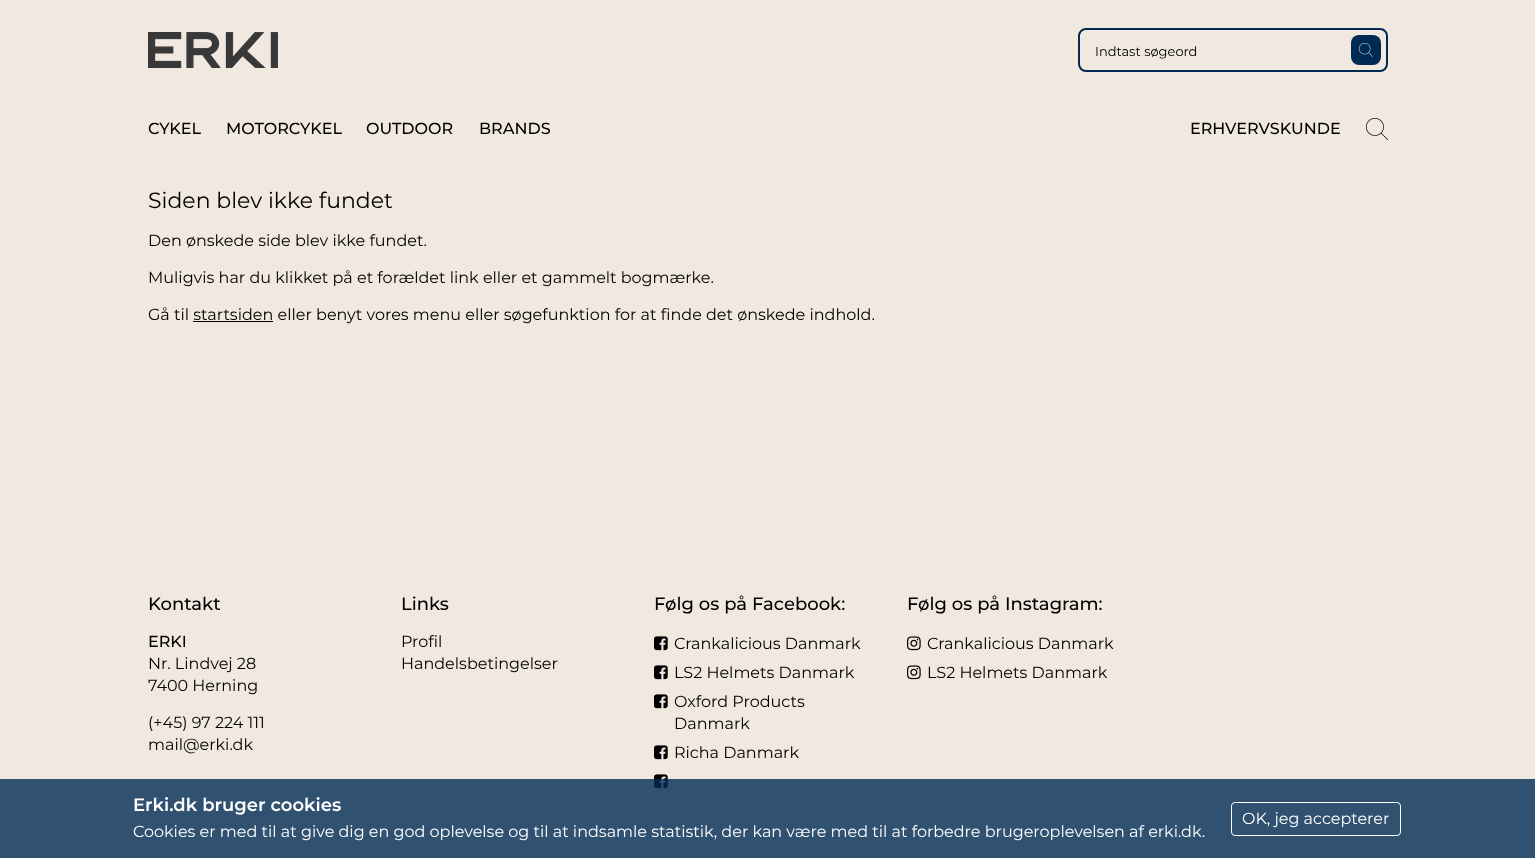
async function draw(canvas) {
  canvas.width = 1535
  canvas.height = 858
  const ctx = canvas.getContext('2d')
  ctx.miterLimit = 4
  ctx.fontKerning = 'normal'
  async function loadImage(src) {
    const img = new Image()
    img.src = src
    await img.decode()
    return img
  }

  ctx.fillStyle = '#f1e8df'
  ctx.fillRect(0, 0, 1535, 858)
  ctx.drawImage(await loadImage('image0.png'), 148, 32, 130, 36)
  ctx.beginPath()
  ctx.roundRect(1079, 29, 308, 42, 7)
  ctx.strokeStyle = '#002a54'
  ctx.lineWidth = 2
  ctx.stroke()
  ctx.beginPath()
  ctx.roundRect(1080, 30, 306, 40, 8)
  ctx.fill()
  ctx.font = '100 13px Montserrat'
  ctx.fillStyle = '#000'
  ctx.fillText('Indtast søgeord', 1095, 56)
  ctx.fillStyle = '#002a54'
  ctx.beginPath()
  ctx.roundRect(1351, 35, 30, 30, 8)
  ctx.fill()
  ctx.drawImage(await loadImage('image1.png'), 1359, 43, 14, 14)
  ctx.fillStyle = '#ebebeb'
  ctx.fillRect(0, 100, 1535, 1)
  ctx.fillRect(0, 156, 1535, 1)
  ctx.font = '100 16px "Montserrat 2"'
  ctx.fillStyle = '#000'
  ctx.fillText('CYKEL', 148, 134)
  ctx.fillText('MOTORCYKEL', 226, 134)
  ctx.fillText('OUTDOOR', 366, 134)
  ctx.fillText('BRANDS', 479, 134)
  ctx.fillText('ERHVERVSKUNDE', 1190, 134)
  ctx.drawImage(await loadImage('image2.png'), 1366, 118, 22, 22)
  ctx.font = '100 22px Montserrat'
  ctx.fillText('Siden blev ikke fundet', 148, 208)
  ctx.font = '100 16px Montserrat'
  ctx.fillText('Den ønskede side blev ikke fundet.', 148, 246)
  ctx.fillText('Muligvis har du klikket på et forældet link eller et gammelt bogmærke.', 148, 283)
  ctx.fillText('Gå til startsiden eller benyt vores menu eller søgefunktion for at finde det ønskede indhold.', 148, 320)
  ctx.fillRect(193, 321, 80, 1)
  ctx.font = '100 18px "Montserrat 2"'
  ctx.fillText('Kontakt', 148, 610)
  ctx.font = '100 16px "Montserrat 2"'
  ctx.fillText('ERKI', 148, 647)
  ctx.font = '100 16px Montserrat'
  ctx.fillText('Nr. Lindvej 28', 148, 669)
  ctx.fillText('7400 Herning', 148, 691)
  ctx.fillText('(+45) 97 224 111', 148, 728)
  ctx.fillText('mail@erki.dk', 148, 750)
  ctx.font = '100 18px "Montserrat 2"'
  ctx.fillText('Links', 401, 610)
  ctx.font = '100 16px Montserrat'
  ctx.fillText('Profil', 401, 647)
  ctx.fillText('Handelsbetingelser', 401, 669)
  ctx.font = '100 18px "Montserrat 2"'
  ctx.fillText('Følg os på Facebook:', 654, 610)
  ctx.drawImage(await loadImage('image3.png'), 654, 636, 14, 15)
  ctx.font = '100 16px Montserrat'
  ctx.fillText('Crankalicious Danmark', 674, 649)
  ctx.drawImage(await loadImage('image3.png'), 654, 665, 14, 15)
  ctx.fillText('LS2 Helmets Danmark', 674, 678)
  ctx.drawImage(await loadImage('image3.png'), 654, 694, 14, 15)
  ctx.fillText('Oxford Products', 674, 707)
  ctx.fillText('Danmark', 674, 729)
  ctx.drawImage(await loadImage('image3.png'), 654, 745, 14, 15)
  ctx.fillText('Richa Danmark', 674, 758)
  ctx.drawImage(await loadImage('image3.png'), 654, 774, 14, 15)
  ctx.font = '100 18px "Montserrat 2"'
  ctx.fillText('Følg os på Instagram:', 907, 610)
  ctx.drawImage(await loadImage('image4.png'), 907, 636, 14, 15)
  ctx.font = '100 16px Montserrat'
  ctx.fillText('Crankalicious Danmark', 927, 649)
  ctx.drawImage(await loadImage('image4.png'), 907, 665, 14, 15)
  ctx.fillText('LS2 Helmets Danmark', 927, 678)
  ctx.fillStyle = '#002a54cc'
  ctx.fillRect(0, 779, 1535, 79)
  ctx.font = '100 18px "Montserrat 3"'
  ctx.fillStyle = '#fff'
  ctx.fillText('Erki.dk bruger cookies', 133, 811)
  ctx.font = '100 16px Montserrat'
  ctx.fillText('Cookies er med til at give dig en god oplevelse og til at indsamle statistik, der kan være med til at forbedre brugeroplevelsen af erki.dk.', 133, 837)
  ctx.beginPath()
  ctx.roundRect(1231.5, 802.5, 169, 33, 3.5)
  ctx.strokeStyle = '#fff'
  ctx.lineWidth = 1
  ctx.stroke()
  ctx.fillText('OK, jeg accepterer', 1242, 824)
}

draw(document.querySelector('canvas'))
